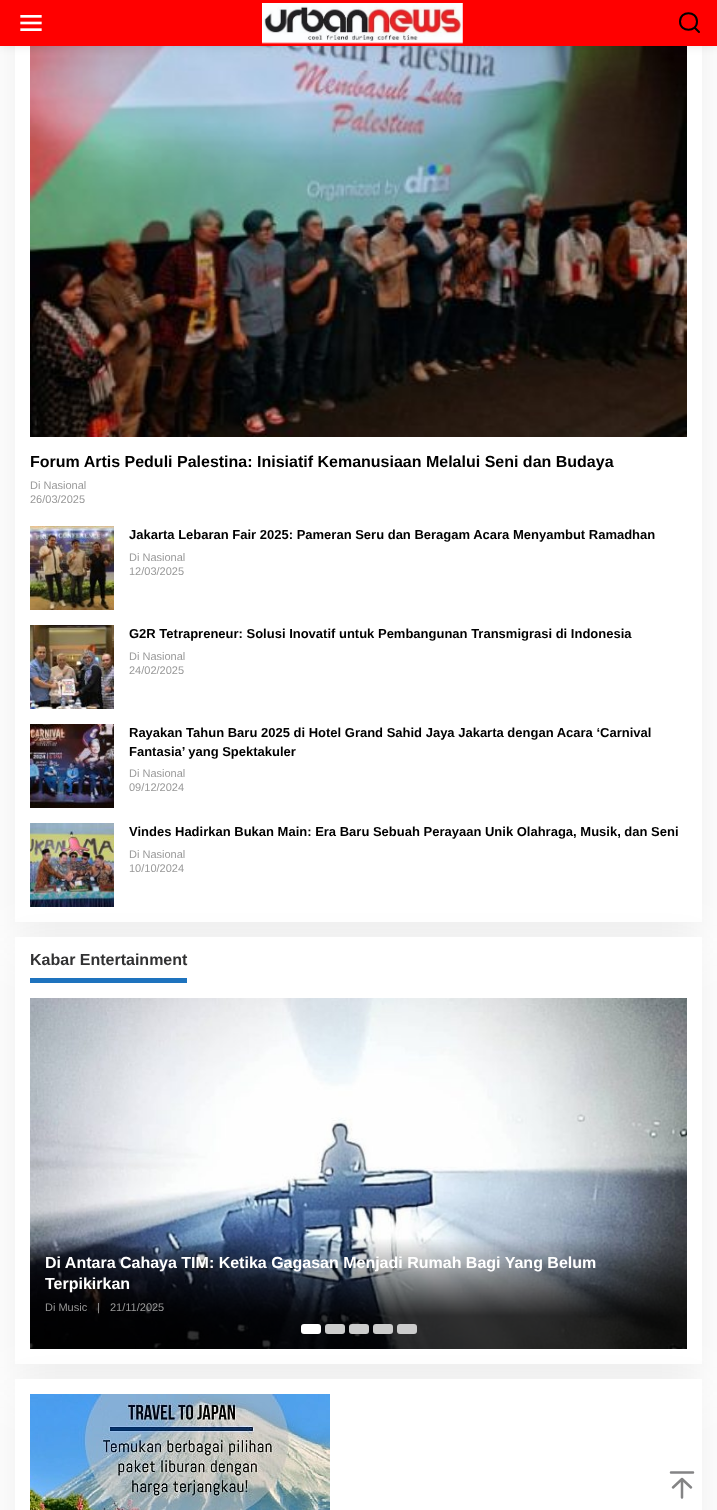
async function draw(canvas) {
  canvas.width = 717
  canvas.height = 1510
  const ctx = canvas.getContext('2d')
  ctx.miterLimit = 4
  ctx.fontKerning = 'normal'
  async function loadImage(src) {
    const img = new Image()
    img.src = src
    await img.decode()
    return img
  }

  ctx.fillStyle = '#fff'
  ctx.fillRect(0, 0, 717, 1510)
  ctx.save()
  ctx.beginPath()
  ctx.moveTo(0, 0)
  ctx.lineTo(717, 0)
  ctx.lineTo(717, 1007)
  ctx.lineTo(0, 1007)
  ctx.closePath()
  ctx.moveTo(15, -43)
  ctx.lineTo(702, -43)
  ctx.lineTo(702, 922)
  ctx.lineTo(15, 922)
  ctx.closePath()
  ctx.clip('evenodd')
  ctx.fillStyle = '#00000012'
  ctx.filter = 'blur(22.5px)'
  ctx.beginPath()
  ctx.rect(15, -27, 687, 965)
  ctx.fill()
  ctx.filter = 'none'
  ctx.restore()
  ctx.drawImage(await loadImage('image2.png'), 30, 46, 657, 391)
  ctx.fillStyle = '#0000001a'
  ctx.filter = 'blur(5px)'
  ctx.beginPath()
  ctx.rect(0, 0, 717, 46)
  ctx.fill()
  ctx.filter = 'none'
  ctx.fillStyle = '#f00'
  ctx.fillRect(0, 0, 717, 46)
  ctx.drawImage(await loadImage('image0.png'), 20, 15, 22, 16)
  ctx.drawImage(await loadImage('image1.png'), 262, 3, 201, 41)
  ctx.beginPath()
  ctx.moveTo(699, 32)
  ctx.lineTo(694.5, 27.5)
  ctx.moveTo(697, 21.5)
  ctx.bezierCurveTo(697, 32.5, 680, 32.5, 680, 21.5)
  ctx.bezierCurveTo(680, 10.5, 697, 10.5, 697, 21.5)
  ctx.closePath()
  ctx.strokeStyle = '#000'
  ctx.lineWidth = 2
  ctx.lineCap = 'round'
  ctx.stroke()
  ctx.font = 'bold 16px Liberation Sans'
  ctx.fillStyle = '#000'
  ctx.fillText('Forum Artis Peduli Palestina: Inisiatif Kemanusiaan Melalui Seni dan Budaya', 30, 467)
  ctx.font = '11px Liberation Sans'
  ctx.fillStyle = '#999'
  ctx.fillText('Di Nasional', 30, 489)
  ctx.fillText('26/03/2025', 30, 503)
  ctx.drawImage(await loadImage('image3.png'), 30, 526, 84, 84)
  ctx.font = 'bold 13px Liberation Sans'
  ctx.fillStyle = '#000'
  ctx.fillText('Jakarta Lebaran Fair 2025: Pameran Seru dan Beragam Acara Menyambut Ramadhan', 129, 539)
  ctx.font = '11px Liberation Sans'
  ctx.fillStyle = '#999'
  ctx.fillText('Di Nasional', 129, 561)
  ctx.fillText('12/03/2025', 129, 575)
  ctx.drawImage(await loadImage('image4.png'), 30, 625, 84, 84)
  ctx.font = 'bold 13px Liberation Sans'
  ctx.fillStyle = '#000'
  ctx.fillText('G2R Tetrapreneur: Solusi Inovatif untuk Pembangunan Transmigrasi di Indonesia', 129, 638)
  ctx.font = '11px Liberation Sans'
  ctx.fillStyle = '#999'
  ctx.fillText('Di Nasional', 129, 660)
  ctx.fillText('24/02/2025', 129, 674)
  ctx.drawImage(await loadImage('image5.png'), 30, 724, 84, 84)
  ctx.font = 'bold 13px Liberation Sans'
  ctx.fillStyle = '#000'
  ctx.fillText('Rayakan Tahun Baru 2025 di Hotel Grand Sahid Jaya Jakarta dengan Acara ‘Carnival', 129, 737)
  ctx.fillText('Fantasia’ yang Spektakuler', 129, 756)
  ctx.font = '11px Liberation Sans'
  ctx.fillStyle = '#999'
  ctx.fillText('Di Nasional', 129, 777)
  ctx.fillText('09/12/2024', 129, 791)
  ctx.fillStyle = '#00000012'
  ctx.filter = 'blur(22.5px)'
  ctx.beginPath()
  ctx.rect(15, 953, 687, 427)
  ctx.fill()
  ctx.filter = 'none'
  ctx.drawImage(await loadImage('image6.png'), 30, 823, 84, 84)
  ctx.font = 'bold 13px Liberation Sans'
  ctx.fillStyle = '#000'
  ctx.fillText('Vindes Hadirkan Bukan Main: Era Baru Sebuah Perayaan Unik Olahraga, Musik, dan Seni', 129, 836)
  ctx.font = '11px Liberation Sans'
  ctx.fillStyle = '#999'
  ctx.fillText('Di Nasional', 129, 858)
  ctx.fillText('10/10/2024', 129, 872)
  ctx.fillStyle = '#fff'
  ctx.fillRect(15, 937, 687, 427)
  ctx.fillStyle = '#1e73be'
  ctx.fillRect(30, 978, 157, 5)
  ctx.font = 'bold 16px Liberation Sans'
  ctx.fillStyle = '#323233'
  ctx.fillText('Kabar Entertainment', 30, 965)
  ctx.fillStyle = '#00000012'
  ctx.filter = 'blur(22.5px)'
  ctx.beginPath()
  ctx.rect(15, 1395, 687, 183)
  ctx.fill()
  ctx.filter = 'none'
  ctx.drawImage(await loadImage('image7.png'), 30, 998, 657, 351)
  ctx.fillStyle = '#fff'
  ctx.fillText('Di Antara Cahaya TIM: Ketika Gagasan Menjadi Rumah Bagi Yang Belum', 45, 1268)
  ctx.fillText('Terpikirkan', 45, 1289)
  ctx.font = '11px Liberation Sans'
  ctx.fillStyle = '#999'
  ctx.fillText('Di Music', 45, 1311)
  ctx.fillText('|', 97, 1311)
  ctx.fillText('21/11/2025', 110, 1311)
  ctx.fillStyle = '#fff'
  ctx.beginPath()
  ctx.roundRect(301, 1324, 20, 10, 3)
  ctx.fill()
  ctx.fillStyle = '#ccc'
  ctx.beginPath()
  ctx.roundRect(325, 1324, 20, 10, 3)
  ctx.fill()
  ctx.beginPath()
  ctx.roundRect(349, 1324, 20, 10, 3)
  ctx.fill()
  ctx.beginPath()
  ctx.roundRect(373, 1324, 20, 10, 3)
  ctx.fill()
  ctx.beginPath()
  ctx.roundRect(397, 1324, 20, 10, 3)
  ctx.fill()
  ctx.fillStyle = '#fff'
  ctx.fillRect(15, 1379, 687, 131)
  ctx.drawImage(await loadImage('image8.png'), 30, 1394, 300, 116)
  ctx.beginPath()
  ctx.moveTo(682, 1497.5)
  ctx.lineTo(682, 1479)
  ctx.moveTo(673, 1487.5)
  ctx.lineTo(682, 1479)
  ctx.lineTo(691, 1487.5)
  ctx.moveTo(671, 1472.5)
  ctx.lineTo(693, 1472.5)
  ctx.strokeStyle = '#848485'
  ctx.lineWidth = 2.5
  ctx.lineJoin = 'round'
  ctx.stroke()
}

draw(document.querySelector('canvas'))
